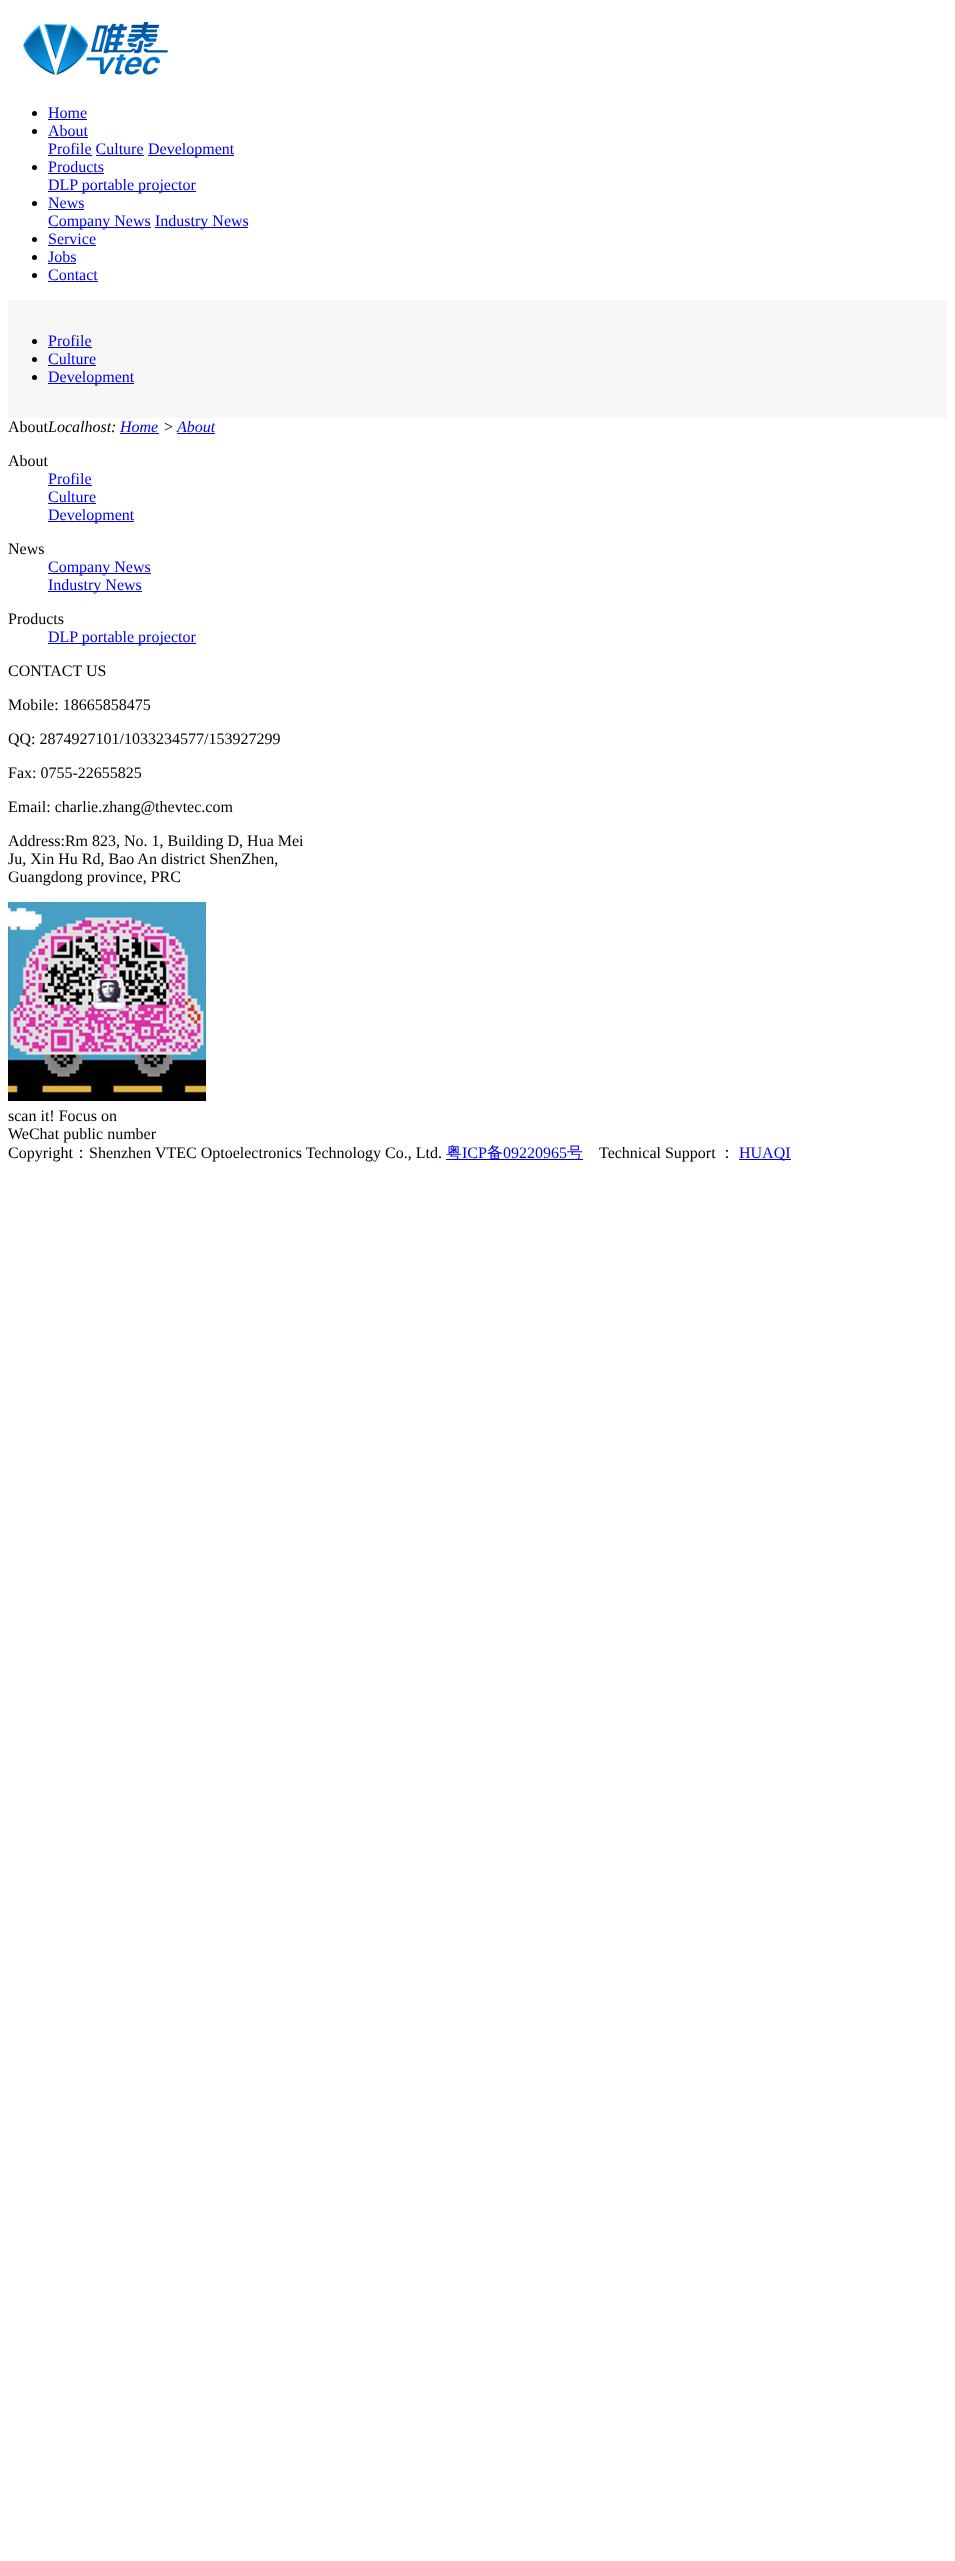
async function draw(canvas) {
  canvas.width = 955
  canvas.height = 2561
  const ctx = canvas.getContext('2d')
  ctx.miterLimit = 4
  ctx.fontKerning = 'normal'
  async function loadImage(src) {
    const img = new Image()
    img.src = src
    await img.decode()
    return img
  }

  ctx.fillStyle = '#fff'
  ctx.fillRect(0, 0, 955, 2561)
  ctx.drawImage(await loadImage('image0.png'), 23, 17, 145, 61)
  ctx.fillStyle = '#000'
  ctx.beginPath()
  ctx.arc(34.5, 113.5, 2.5, 0, 2 * Math.PI)
  ctx.fill()
  ctx.font = '16px Liberation Serif'
  ctx.fillStyle = '#00e'
  ctx.fillText('Home', 48, 118)
  ctx.fillRect(48, 119, 39, 1)
  ctx.fillStyle = '#000'
  ctx.beginPath()
  ctx.arc(34.5, 131.5, 2.5, 0, 2 * Math.PI)
  ctx.fill()
  ctx.fillStyle = '#00e'
  ctx.fillText('About', 48, 136)
  ctx.fillRect(48, 137, 40, 1)
  ctx.fillText('Profile Culture', 48, 154)
  ctx.fillRect(48, 155, 44, 1)
  ctx.fillRect(148, 155, 86, 1)
  ctx.fillText('Development', 148, 154)
  ctx.fillRect(96, 155, 48, 1)
  ctx.fillStyle = '#000'
  ctx.beginPath()
  ctx.arc(34.5, 167.5, 2.5, 0, 2 * Math.PI)
  ctx.fill()
  ctx.fillStyle = '#00e'
  ctx.fillText('Products', 48, 172)
  ctx.fillRect(48, 173, 56, 1)
  ctx.fillRect(48, 191, 148, 1)
  ctx.fillText('DLP portable projector', 48, 190)
  ctx.fillStyle = '#000'
  ctx.beginPath()
  ctx.arc(34.5, 203.5, 2.5, 0, 2 * Math.PI)
  ctx.fill()
  ctx.fillStyle = '#00e'
  ctx.fillText('News', 48, 208)
  ctx.fillRect(48, 209, 36, 1)
  ctx.fillRect(48, 227, 103, 1)
  ctx.fillText('Company News', 48, 226)
  ctx.fillRect(155, 227, 93, 1)
  ctx.fillText('Industry News', 155, 226)
  ctx.fillStyle = '#000'
  ctx.beginPath()
  ctx.arc(34.5, 239.5, 2.5, 0, 2 * Math.PI)
  ctx.fill()
  ctx.fillStyle = '#00e'
  ctx.fillText('Service', 48, 244)
  ctx.fillRect(48, 245, 48, 1)
  ctx.fillStyle = '#000'
  ctx.beginPath()
  ctx.arc(34.5, 257.5, 2.5, 0, 2 * Math.PI)
  ctx.fill()
  ctx.fillStyle = '#00e'
  ctx.fillText('Jobs', 48, 262)
  ctx.fillRect(48, 263, 28, 1)
  ctx.fillStyle = '#000'
  ctx.beginPath()
  ctx.arc(34.5, 275.5, 2.5, 0, 2 * Math.PI)
  ctx.fill()
  ctx.fillStyle = '#00e'
  ctx.fillText('Contact', 48, 280)
  ctx.fillRect(48, 281, 50, 1)
  ctx.fillStyle = '#f7f7f7'
  ctx.fillRect(8, 300, 939, 118)
  ctx.fillStyle = '#000'
  ctx.beginPath()
  ctx.arc(34.5, 341.5, 2.5, 0, 2 * Math.PI)
  ctx.fill()
  ctx.fillStyle = '#00e'
  ctx.fillText('Profile', 48, 346)
  ctx.fillRect(48, 347, 44, 1)
  ctx.fillStyle = '#000'
  ctx.beginPath()
  ctx.arc(34.5, 359.5, 2.5, 0, 2 * Math.PI)
  ctx.fill()
  ctx.fillStyle = '#00e'
  ctx.fillText('Culture', 48, 364)
  ctx.fillRect(48, 365, 48, 1)
  ctx.fillStyle = '#000'
  ctx.beginPath()
  ctx.arc(34.5, 377.5, 2.5, 0, 2 * Math.PI)
  ctx.fill()
  ctx.fillStyle = '#00e'
  ctx.fillRect(48, 383, 86, 1)
  ctx.fillText('Development', 48, 382)
  ctx.fillStyle = '#000'
  ctx.fillText('About', 8, 432)
  ctx.font = 'italic 16px Liberation Serif'
  ctx.fillText('Localhost:', 48, 432)
  ctx.fillStyle = '#00e'
  ctx.fillText('Home', 120, 432)
  ctx.fillRect(120, 433, 39, 1)
  ctx.fillStyle = '#000'
  ctx.fillText('>', 163, 432)
  ctx.fillStyle = '#00e'
  ctx.fillText('About', 177, 432)
  ctx.fillRect(177, 433, 38, 1)
  ctx.font = '16px Liberation Serif'
  ctx.fillStyle = '#000'
  ctx.fillText('About', 8, 466)
  ctx.fillStyle = '#00e'
  ctx.fillText('Profile', 48, 484)
  ctx.fillRect(48, 485, 44, 1)
  ctx.fillText('Culture', 48, 502)
  ctx.fillRect(48, 503, 48, 1)
  ctx.fillRect(48, 521, 86, 1)
  ctx.fillText('Development', 48, 520)
  ctx.fillStyle = '#000'
  ctx.fillText('News', 8, 554)
  ctx.fillStyle = '#00e'
  ctx.fillRect(48, 573, 103, 1)
  ctx.fillText('Company News', 48, 572)
  ctx.fillRect(48, 591, 94, 1)
  ctx.fillText('Industry News', 48, 590)
  ctx.fillStyle = '#000'
  ctx.fillText('Products', 8, 624)
  ctx.fillStyle = '#00e'
  ctx.fillRect(48, 643, 148, 1)
  ctx.fillText('DLP portable projector', 48, 642)
  ctx.fillStyle = '#000'
  ctx.fillText('CONTACT US', 8, 676)
  ctx.fillText('Mobile: 18665858475', 8, 710)
  ctx.fillText('QQ: 2874927101/1033234577/153927299', 8, 744)
  ctx.fillText('Fax: 0755-22655825', 8, 778)
  ctx.fillText('Email: charlie.zhang@thevtec.com', 8, 812)
  ctx.fillText('Address:Rm 823, No. 1, Building D, Hua Mei', 8, 846)
  ctx.fillText('Ju, Xin Hu Rd, Bao An district ShenZhen,', 8, 864)
  ctx.fillText('Guangdong province, PRC', 8, 882)
  ctx.drawImage(await loadImage('image1.png'), 8, 902, 198, 199)
  ctx.fillText('scan it! Focus on', 8, 1121)
  ctx.fillText('WeChat public number', 8, 1139)
  ctx.fillText('Copyright', 8, 1158)
  ctx.font = '500 16px WenQuanYi Zen Hei'
  ctx.fillText('：', 73, 1158)
  ctx.font = '16px Liberation Serif'
  ctx.fillText('Shenzhen VTEC Optoelectronics Technology Co., Ltd.', 89, 1158)
  ctx.fillStyle = '#00e'
  ctx.fillRect(446, 1159, 137, 1)
  ctx.font = '500 16px WenQuanYi Zen Hei'
  ctx.fillText('粤', 446, 1158)
  ctx.font = '16px Liberation Serif'
  ctx.fillText('ICP', 462, 1158)
  ctx.font = '500 16px WenQuanYi Zen Hei'
  ctx.fillText('备', 487, 1158)
  ctx.font = '16px Liberation Serif'
  ctx.fillText('09220965', 503, 1158)
  ctx.font = '500 16px WenQuanYi Zen Hei'
  ctx.fillText('号', 567, 1158)
  ctx.font = '16px Liberation Serif'
  ctx.fillStyle = '#000'
  ctx.fillText('Technical Support', 599, 1158)
  ctx.font = '500 16px WenQuanYi Zen Hei'
  ctx.fillText('：', 719, 1158)
  ctx.fillStyle = '#00e'
  ctx.fillRect(739, 1159, 52, 1)
  ctx.font = '16px Liberation Serif'
  ctx.fillText('HUAQI', 739, 1158)
}

draw(document.querySelector('canvas'))
